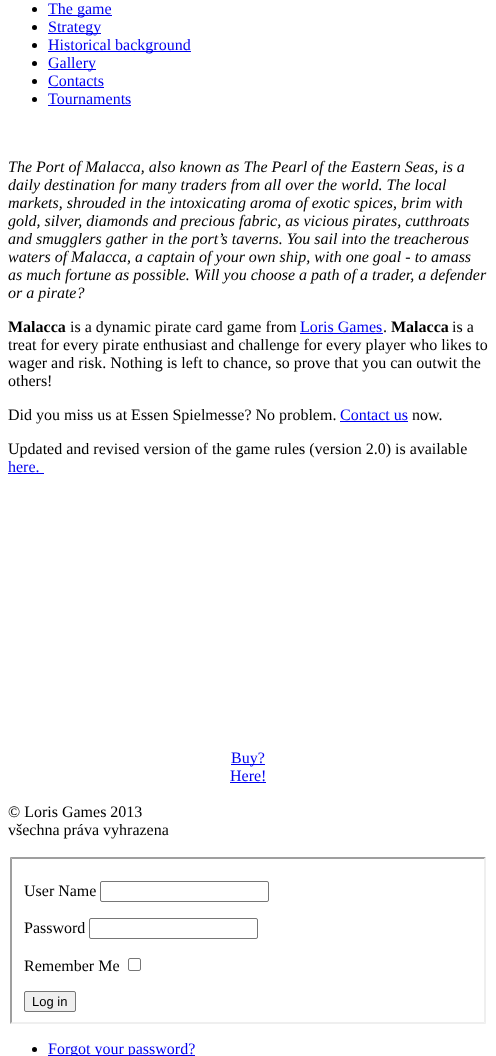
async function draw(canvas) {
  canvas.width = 496
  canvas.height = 1056
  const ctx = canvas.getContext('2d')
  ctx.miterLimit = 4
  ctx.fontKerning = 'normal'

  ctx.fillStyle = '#fff'
  ctx.fillRect(0, 0, 496, 1056)
  ctx.fillStyle = '#000'
  ctx.beginPath()
  ctx.arc(34.5, 9.5, 2.5, 0, 2 * Math.PI)
  ctx.fill()
  ctx.fillStyle = '#00e'
  ctx.fillRect(48, 15, 64, 1)
  ctx.font = '16px Liberation Serif'
  ctx.fillText('The game', 48, 14)
  ctx.fillStyle = '#000'
  ctx.beginPath()
  ctx.arc(34.5, 27.5, 2.5, 0, 2 * Math.PI)
  ctx.fill()
  ctx.fillStyle = '#00e'
  ctx.fillRect(48, 33, 53, 1)
  ctx.fillText('Strategy', 48, 32)
  ctx.fillStyle = '#000'
  ctx.beginPath()
  ctx.arc(34.5, 45.5, 2.5, 0, 2 * Math.PI)
  ctx.fill()
  ctx.fillStyle = '#00e'
  ctx.fillRect(48, 51, 143, 1)
  ctx.fillText('Historical background', 48, 50)
  ctx.fillStyle = '#000'
  ctx.beginPath()
  ctx.arc(34.5, 63.5, 2.5, 0, 2 * Math.PI)
  ctx.fill()
  ctx.fillStyle = '#00e'
  ctx.fillRect(48, 69, 48, 1)
  ctx.fillText('Gallery', 48, 68)
  ctx.fillStyle = '#000'
  ctx.beginPath()
  ctx.arc(34.5, 81.5, 2.5, 0, 2 * Math.PI)
  ctx.fill()
  ctx.fillStyle = '#00e'
  ctx.fillText('Contacts', 48, 86)
  ctx.fillRect(48, 87, 56, 1)
  ctx.fillStyle = '#000'
  ctx.beginPath()
  ctx.arc(34.5, 99.5, 2.5, 0, 2 * Math.PI)
  ctx.fill()
  ctx.fillStyle = '#00e'
  ctx.fillText('Tournaments', 48, 104)
  ctx.fillRect(48, 105, 83, 1)
  ctx.font = 'italic 16px Liberation Serif'
  ctx.fillStyle = '#000'
  ctx.fillText('The Port of Malacca, also known as The Pearl of the Eastern Seas, is a', 8, 172)
  ctx.fillText('daily destination for many traders from all over the world. The local', 8, 190)
  ctx.fillText('markets, shrouded in the intoxicating aroma of exotic spices, brim with', 8, 208)
  ctx.fillText('gold, silver, diamonds and precious fabric, as vicious pirates, cutthroats', 8, 226)
  ctx.fillText('and smugglers gather in the port’s taverns. You sail into the treacherous', 8, 244)
  ctx.fillText('waters of Malacca, a captain of your own ship, with one goal - to amass', 8, 262)
  ctx.fillText('as much fortune as possible. Will you choose a path of a trader, a defender', 8, 280)
  ctx.fillText('or a pirate?', 8, 298)
  ctx.font = 'bold 16px Liberation Serif'
  ctx.fillText('Malacca', 8, 332)
  ctx.font = '16px Liberation Serif'
  ctx.fillText('is a dynamic pirate card game from', 70, 332)
  ctx.fillStyle = '#00e'
  ctx.fillText('Loris Games', 300, 332)
  ctx.fillRect(300, 333, 83, 1)
  ctx.fillStyle = '#000'
  ctx.fillText('.', 383, 332)
  ctx.font = 'bold 16px Liberation Serif'
  ctx.fillText('Malacca', 391, 332)
  ctx.font = '16px Liberation Serif'
  ctx.fillText('is a', 452, 332)
  ctx.fillText('treat for every pirate enthusiast and challenge for every player who likes to', 8, 350)
  ctx.fillText('wager and risk. Nothing is left to chance, so prove that you can outwit the', 8, 368)
  ctx.fillText('others!', 8, 386)
  ctx.fillText('Did you miss us at Essen Spielmesse? No problem.', 8, 420)
  ctx.fillStyle = '#00e'
  ctx.fillText('Contact us', 340, 420)
  ctx.fillRect(340, 421, 68, 1)
  ctx.fillStyle = '#000'
  ctx.fillText('now.', 412, 420)
  ctx.fillText('Updated and revised version of the game rules (version 2.0) is available', 8, 454)
  ctx.fillStyle = '#00e'
  ctx.fillText('here.', 8, 472)
  ctx.fillRect(8, 473, 36, 1)
  ctx.fillRect(231, 764, 34, 1)
  ctx.fillText('Buy?', 231, 763)
  ctx.fillText('Here!', 230, 781)
  ctx.fillRect(230, 782, 36, 1)
  ctx.fillStyle = '#000'
  ctx.fillText('© Loris Games 2013', 8, 817)
  ctx.fillText('všechna práva vyhrazena', 8, 835)
  ctx.fillStyle = '#9f9f9f'
  ctx.beginPath()
  ctx.moveTo(10, 857)
  ctx.lineTo(486, 857)
  ctx.lineTo(484, 859)
  ctx.lineTo(12, 859)
  ctx.closePath()
  ctx.fill()
  ctx.fillStyle = '#efefef'
  ctx.beginPath()
  ctx.moveTo(486, 857)
  ctx.lineTo(486, 1024)
  ctx.lineTo(484, 1022)
  ctx.lineTo(484, 859)
  ctx.closePath()
  ctx.fill()
  ctx.beginPath()
  ctx.moveTo(486, 1024)
  ctx.lineTo(10, 1024)
  ctx.lineTo(12, 1022)
  ctx.lineTo(484, 1022)
  ctx.closePath()
  ctx.fill()
  ctx.fillStyle = '#9f9f9f'
  ctx.beginPath()
  ctx.moveTo(10, 1024)
  ctx.lineTo(10, 857)
  ctx.lineTo(12, 859)
  ctx.lineTo(12, 1022)
  ctx.closePath()
  ctx.fill()
  ctx.fillStyle = '#000'
  ctx.fillText('User Name', 24, 896)
  ctx.beginPath()
  ctx.roundRect(100.5, 881.5, 168, 20, 1.5)
  ctx.strokeStyle = '#767676'
  ctx.stroke()
  ctx.fillText('Password', 24, 933)
  ctx.beginPath()
  ctx.roundRect(89.5, 918.5, 168, 20, 1.5)
  ctx.stroke()
  ctx.fillText('Remember Me', 24, 971)
  ctx.beginPath()
  ctx.roundRect(128.5, 958.5, 12, 12, 1.5)
  ctx.stroke()
  ctx.fillStyle = '#efefef'
  ctx.beginPath()
  ctx.roundRect(24.5, 991.5, 51, 20, 1.5)
  ctx.fill()
  ctx.stroke()
  ctx.font = '13px Liberation Sans'
  ctx.fillStyle = '#000'
  ctx.fillText('Log in', 32, 1006)
  ctx.beginPath()
  ctx.arc(34.5, 1049.5, 2.5, 0, 2 * Math.PI)
  ctx.fill()
  ctx.fillStyle = '#00e'
  ctx.fillRect(48, 1055, 147, 1)
  ctx.font = '16px Liberation Serif'
  ctx.fillText('Forgot your password?', 48, 1054)
}

draw(document.querySelector('canvas'))
